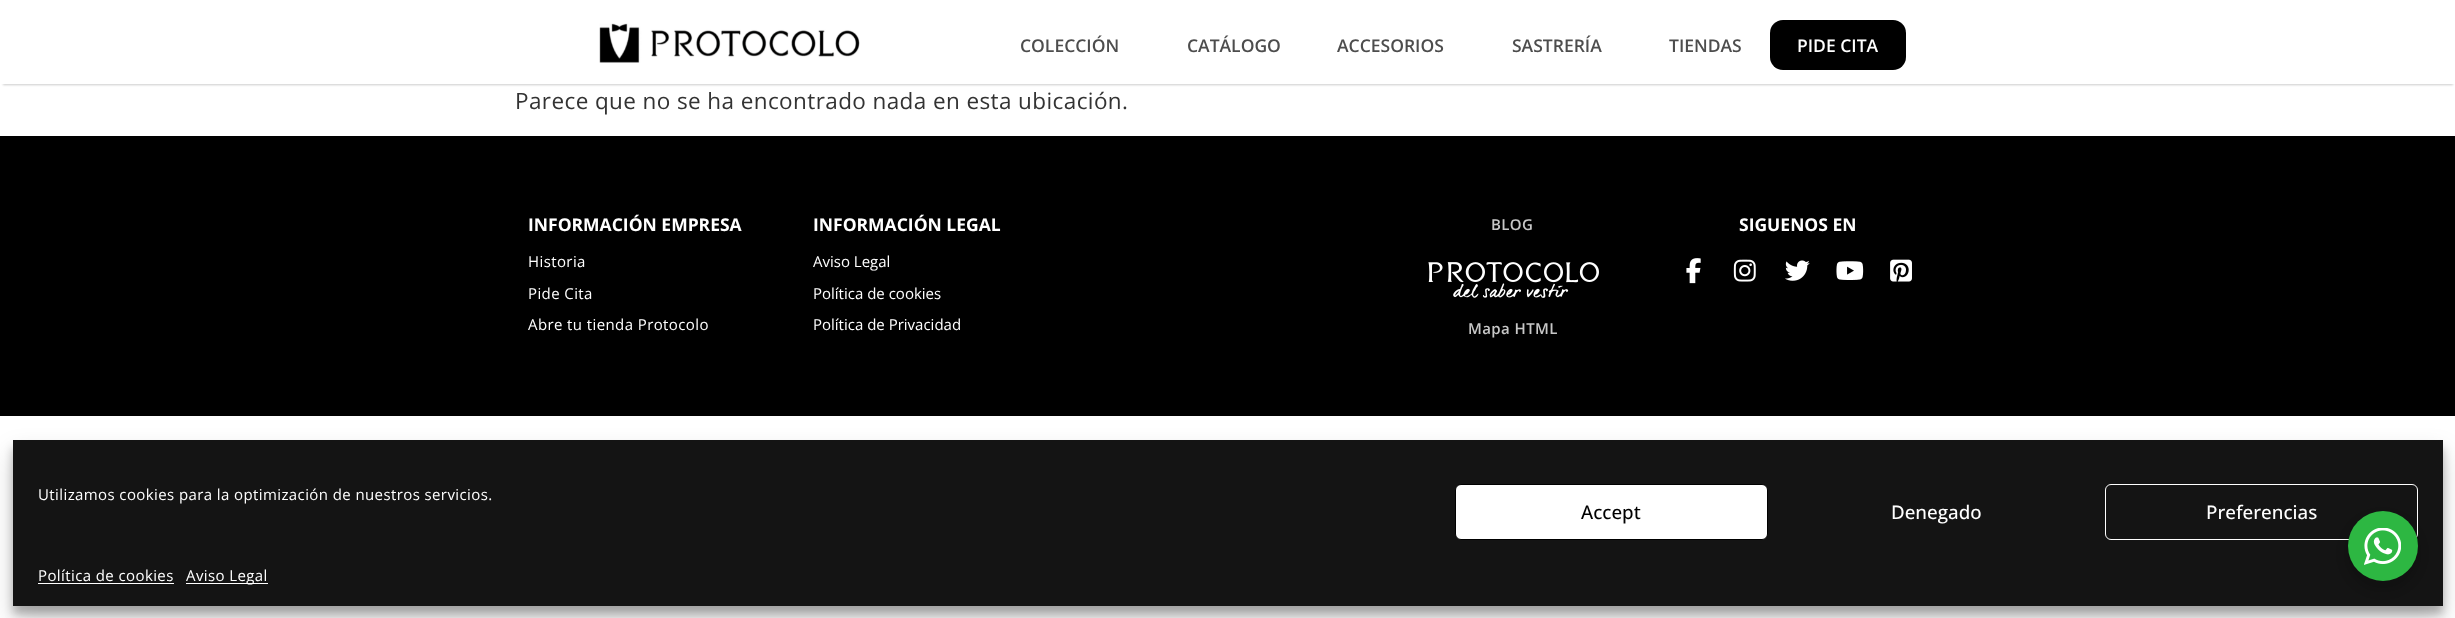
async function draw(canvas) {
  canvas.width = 2455
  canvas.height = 618
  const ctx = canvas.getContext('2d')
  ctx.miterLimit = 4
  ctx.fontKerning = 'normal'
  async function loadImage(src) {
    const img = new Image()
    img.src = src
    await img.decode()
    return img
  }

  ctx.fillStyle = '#fff'
  ctx.fillRect(0, 0, 2455, 618)
  ctx.fillStyle = '#00000033'
  ctx.filter = 'blur(1px)'
  ctx.beginPath()
  ctx.rect(3, 6, 2450, 79)
  ctx.fill()
  ctx.filter = 'none'
  ctx.fillStyle = '#fff'
  ctx.fillRect(1, 4, 2454, 80)
  ctx.drawImage(await loadImage('image0.png'), 599, 23, 261, 40)
  ctx.font = '600 17.5px Open Sans'
  ctx.fillStyle = '#4d4d4d'
  ctx.fillText('COLECCIÓN', 1020, 52)
  ctx.fillText('CATÁLOGO', 1187, 52)
  ctx.fillText('ACCESORIOS', 1337, 52)
  ctx.fillText('SASTRERÍA', 1512, 52)
  ctx.fillText('TIENDAS', 1669, 52)
  ctx.fillStyle = '#000'
  ctx.beginPath()
  ctx.roundRect(1770, 20, 136, 50, 13)
  ctx.fill()
  ctx.fillStyle = '#fff'
  ctx.fillText('PIDE CITA', 1797, 52)
  ctx.letterSpacing = '0.4px'
  ctx.font = '22.5px Open Sans'
  ctx.fillStyle = '#333'
  ctx.fillText('Parece que no se ha encontrado nada en esta ubicación.', 515, 109)
  ctx.fillStyle = '#000'
  ctx.fillRect(0, 136, 2455, 280)
  ctx.letterSpacing = '0px'
  ctx.font = 'bold 17.5px Open Sans'
  ctx.fillStyle = '#fff'
  ctx.fillText('INFORMACIÓN EMPRESA', 528, 231)
  ctx.letterSpacing = '0.4px'
  ctx.font = '15px Open Sans'
  ctx.fillText('Historia', 528, 267)
  ctx.fillText('Pide Cita', 528, 299)
  ctx.fillText('Abre tu tienda Protocolo', 528, 330)
  ctx.letterSpacing = '0px'
  ctx.font = 'bold 17.5px Open Sans'
  ctx.fillText('INFORMACIÓN LEGAL', 813, 231)
  ctx.font = '15px Open Sans'
  ctx.fillText('Aviso Legal', 813, 267)
  ctx.fillText('Política de cookies', 813, 299)
  ctx.fillText('Política de Privacidad', 813, 330)
  ctx.letterSpacing = '0.4px'
  ctx.font = '600 15px Open Sans'
  ctx.fillStyle = '#c7c7c7'
  ctx.fillText('BLOG', 1491, 230)
  ctx.drawImage(await loadImage('image1.png'), 1428, 262, 171, 36)
  ctx.fillText('Mapa HTML', 1468, 334)
  ctx.letterSpacing = '0px'
  ctx.font = 'bold 17.5px Open Sans'
  ctx.fillStyle = '#fff'
  ctx.fillText('SIGUENOS EN', 1739, 231)
  ctx.drawImage(await loadImage('image2.png'), 1686, 258, 15, 26)
  ctx.drawImage(await loadImage('image3.png'), 1733, 259, 23, 23)
  ctx.drawImage(await loadImage('image4.png'), 1785, 260, 25, 21)
  ctx.drawImage(await loadImage('image5.png'), 1836, 261, 28, 19)
  ctx.drawImage(await loadImage('image6.png'), 1890, 259, 22, 23)
  ctx.fillStyle = '#0000003b'
  ctx.filter = 'blur(4px)'
  ctx.beginPath()
  ctx.rect(13, 448, 2430, 166)
  ctx.fill()
  ctx.filter = 'none'
  ctx.fillStyle = '#00000030'
  ctx.filter = 'blur(12.5px)'
  ctx.beginPath()
  ctx.rect(13, 453, 2430, 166)
  ctx.fill()
  ctx.filter = 'none'
  ctx.fillStyle = '#141414'
  ctx.fillRect(13, 440, 2430, 166)
  ctx.beginPath()
  ctx.roundRect(2105.5, 484.5, 312, 55, 5.5)
  ctx.strokeStyle = '#fff'
  ctx.stroke()
  ctx.fillStyle = '#00000024'
  ctx.filter = 'blur(5px)'
  ctx.beginPath()
  ctx.roundRect(2345, 516, 75, 75, 37.5)
  ctx.fill()
  ctx.filter = 'none'
  ctx.fillStyle = '#2db742'
  ctx.beginPath()
  ctx.arc(2383, 546, 35, 0, 2 * Math.PI)
  ctx.fill()
  ctx.drawImage(await loadImage('image7.png'), 2364, 528, 37, 37)
  ctx.letterSpacing = '0.4px'
  ctx.font = '15px Open Sans'
  ctx.fillStyle = '#fff'
  ctx.fillText('Utilizamos cookies para la optimización de nuestros servicios.', 38, 500)
  ctx.beginPath()
  ctx.roundRect(1455.5, 484.5, 312, 55, 5.5)
  ctx.fill()
  ctx.strokeStyle = '#000'
  ctx.stroke()
  ctx.letterSpacing = '0px'
  ctx.font = '500 18.75px Open Sans'
  ctx.fillStyle = '#000'
  ctx.fillText('Accept', 1581, 519)
  ctx.fillStyle = '#fff'
  ctx.fillText('Denegado', 1891, 519)
  ctx.fillText('Preferencias', 2206, 519)
  ctx.letterSpacing = '0.4px'
  ctx.font = '15px Open Sans'
  ctx.fillText('Política de cookies', 38, 581)
  ctx.fillRect(38, 583, 136, 1)
  ctx.fillRect(186, 583, 82, 1)
  ctx.fillText('Aviso Legal', 186, 581)
}

draw(document.querySelector('canvas'))
